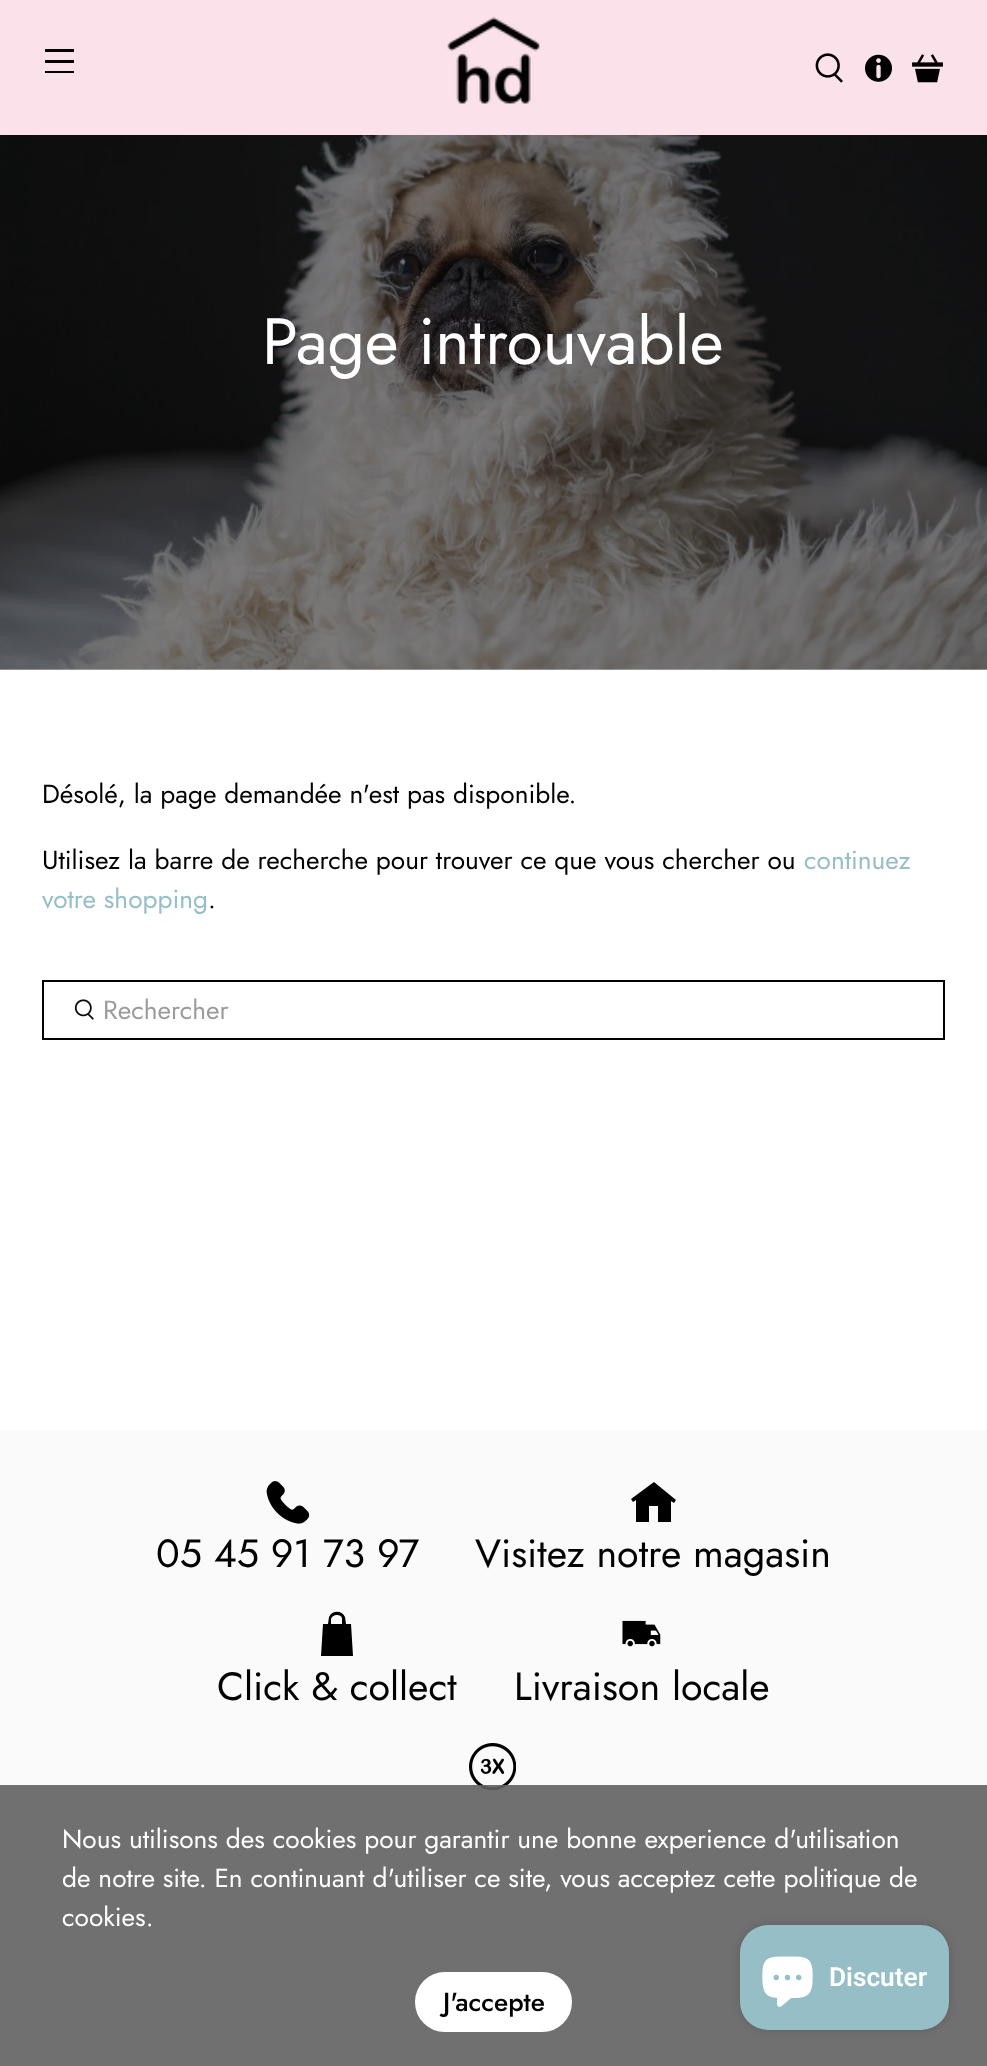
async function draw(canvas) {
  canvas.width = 987
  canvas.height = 2066
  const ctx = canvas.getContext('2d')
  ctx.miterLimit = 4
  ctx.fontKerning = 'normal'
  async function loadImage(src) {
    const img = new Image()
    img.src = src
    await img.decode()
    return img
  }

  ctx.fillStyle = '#fff'
  ctx.fillRect(0, 0, 987, 2066)
  ctx.fillStyle = '#fbe1e9'
  ctx.fillRect(0, 0, 987, 135)
  ctx.fillStyle = '#000'
  ctx.fillRect(45, 49, 29, 3)
  ctx.fillRect(45, 60, 29, 3)
  ctx.fillRect(45, 71, 29, 2)
  ctx.drawImage(await loadImage('image0.png'), 447, 17, 93, 87)
  ctx.drawImage(await loadImage('image1.png'), 815, 53, 28, 30)
  ctx.drawImage(await loadImage('image2.png'), 865, 54, 27, 28)
  ctx.drawImage(await loadImage('image3.png'), 912, 54, 31, 29)
  ctx.drawImage(await loadImage('image4.png'), 0, 135, 987, 535)
  ctx.font = '65.5px Jost'
  ctx.fillStyle = '#fff'
  ctx.fillText('Page introuvable', 262, 364)
  ctx.font = '26.25px Jost'
  ctx.fillStyle = '#000'
  ctx.fillText('Désolé, la page demandée n\'est pas disponible.', 42, 803)
  ctx.fillText('Utilisez la barre de recherche pour trouver ce que vous chercher ou', 42, 869)
  ctx.fillStyle = '#95bec7'
  ctx.fillText('continuez', 804, 869)
  ctx.fillText('votre shopping', 42, 908)
  ctx.fillStyle = '#000'
  ctx.fillText('.', 208, 908)
  ctx.strokeStyle = '#000'
  ctx.lineWidth = 2
  ctx.strokeRect(43, 981, 901, 58)
  ctx.drawImage(await loadImage('image5.png'), 74, 999, 20, 21)
  ctx.fillStyle = '#9b9b9b'
  ctx.fillText('Rechercher', 103, 1019)
  ctx.fillStyle = '#fafafa'
  ctx.fillRect(0, 1430, 987, 467)
  ctx.drawImage(await loadImage('image6.png'), 266, 1481, 44, 43)
  ctx.font = '39.4px Jost'
  ctx.fillStyle = '#000'
  ctx.fillText('05 45 91 73 97', 156, 1567)
  ctx.beginPath()
  ctx.moveTo(676, 1500)
  ctx.lineTo(654, 1482)
  ctx.lineTo(631, 1499)
  ctx.lineTo(633, 1502)
  ctx.lineTo(636, 1500)
  ctx.lineTo(636, 1522)
  ctx.lineTo(649, 1522)
  ctx.lineTo(649, 1506)
  ctx.lineTo(658, 1506)
  ctx.lineTo(658, 1522)
  ctx.lineTo(671, 1522)
  ctx.lineTo(671, 1501)
  ctx.lineTo(674, 1503)
  ctx.closePath()
  ctx.fill()
  ctx.fillText('Visitez notre magasin', 475, 1567)
  ctx.beginPath()
  ctx.moveTo(351, 1624)
  ctx.lineTo(346, 1624)
  ctx.lineTo(345, 1617)
  ctx.bezierCurveTo(342, 1610, 332, 1610, 329, 1617)
  ctx.lineTo(328, 1624)
  ctx.lineTo(323, 1624)
  ctx.lineTo(321, 1656)
  ctx.lineTo(353, 1656)
  ctx.closePath()
  ctx.moveTo(331, 1620)
  ctx.bezierCurveTo(331, 1615, 340, 1613, 342, 1618)
  ctx.lineTo(342, 1624)
  ctx.lineTo(331, 1624)
  ctx.closePath()
  ctx.fill()
  ctx.fillText('Click & collect', 217, 1700)
  ctx.drawImage(await loadImage('image7.png'), 622, 1620, 39, 27)
  ctx.fillText('Livraison locale', 514, 1700)
  ctx.drawImage(await loadImage('image8.png'), 469, 1743, 47, 47)
  ctx.fillStyle = '#606060e6'
  ctx.fillRect(0, 1785, 987, 281)
  ctx.font = '26.25px Jost'
  ctx.fillStyle = '#fff'
  ctx.fillText('Nous utilisons des cookies pour garantir une bonne experience d\'utilisation', 62, 1848)
  ctx.fillText('de notre site. En continuant d\'utiliser ce site, vous acceptez cette politique de', 62, 1887)
  ctx.fillText('cookies.', 62, 1926)
  ctx.beginPath()
  ctx.roundRect(416, 1973, 155, 58, 29)
  ctx.fill()
  ctx.strokeStyle = '#fff'
  ctx.stroke()
  ctx.font = '500 26.25px Jost'
  ctx.fillStyle = '#000'
  ctx.fillText('J\'accepte', 443, 2011)
  ctx.fillStyle = '#00000026'
  ctx.filter = 'blur(4.5px)'
  ctx.beginPath()
  ctx.roundRect(740, 1925, 209, 105, 28)
  ctx.fill()
  ctx.filter = 'none'
  ctx.fillStyle = '#95bec7'
  ctx.beginPath()
  ctx.roundRect(740, 1925, 209, 105, 28)
  ctx.fill()
  ctx.drawImage(await loadImage('image9.png'), 762, 1956, 51, 51)
  ctx.font = '600 26.25px Roboto'
  ctx.fillStyle = '#fff'
  ctx.fillText('Discuter', 829, 1986)
}

draw(document.querySelector('canvas'))
